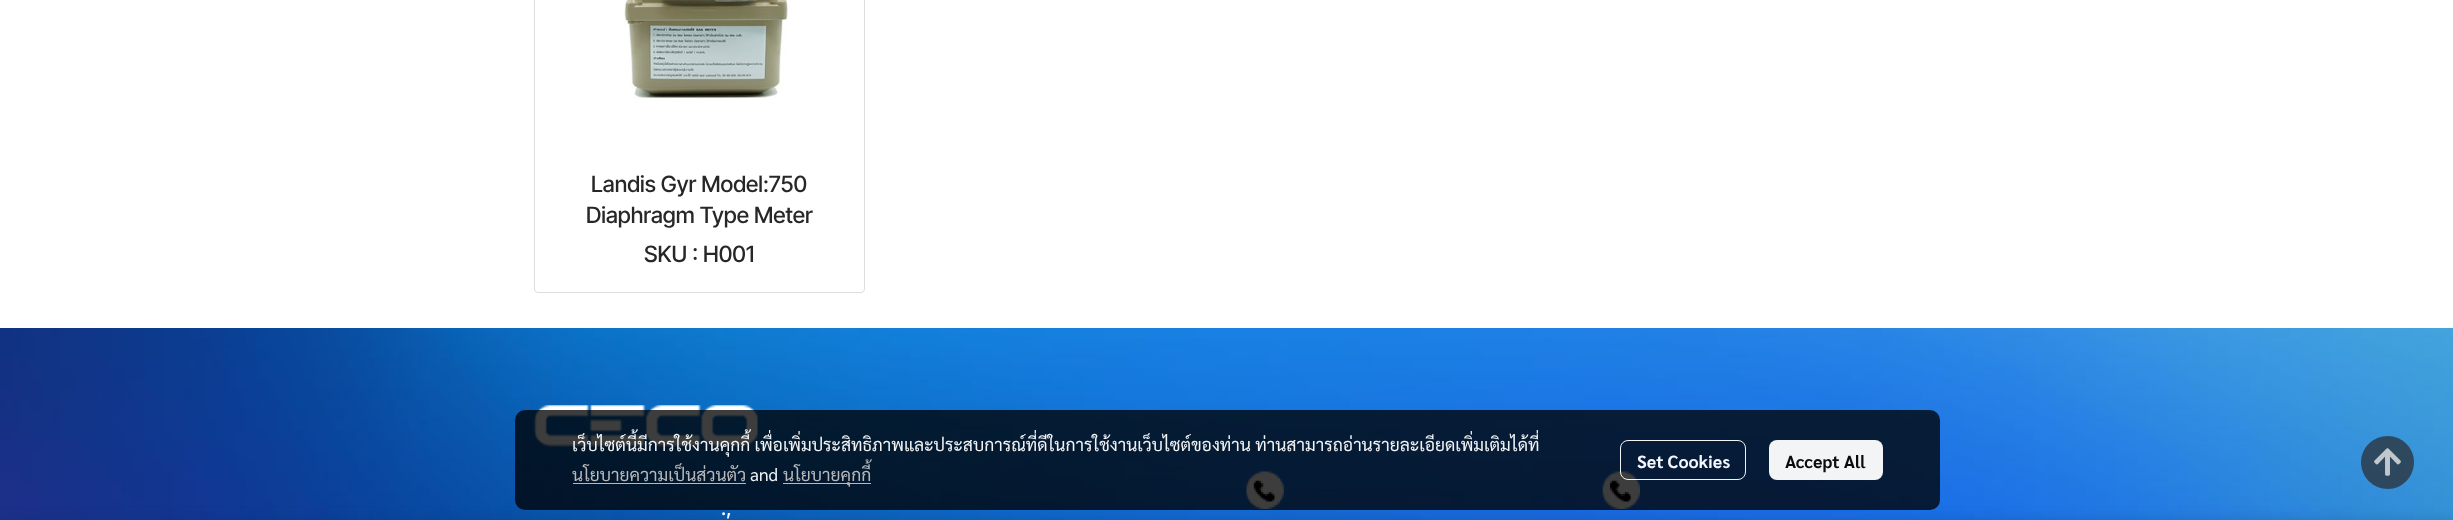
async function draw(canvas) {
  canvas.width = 2453
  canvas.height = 520
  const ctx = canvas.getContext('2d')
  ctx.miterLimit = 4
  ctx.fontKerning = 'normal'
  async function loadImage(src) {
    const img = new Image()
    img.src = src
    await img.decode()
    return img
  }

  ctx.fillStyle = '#fff'
  ctx.fillRect(0, 0, 2453, 520)
  ctx.beginPath()
  ctx.roundRect(534.5, -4.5, 330, 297, 3.5)
  ctx.strokeStyle = '#ddd'
  ctx.stroke()
  ctx.drawImage(await loadImage('image0.png'), 624, 0, 166, 99)
  ctx.font = '500 22.5px Inter Tight'
  ctx.fillStyle = '#272727'
  ctx.fillText('Landis Gyr Model:750', 591, 192)
  ctx.fillText('Diaphragm Type Meter', 586, 223)
  ctx.fillText('SKU : H001', 644, 262)
  ctx.drawImage(await loadImage('image2.png'), 0, 328, 2453, 192)
  ctx.drawImage(await loadImage('image3.png'), 1246, 471, 38, 38)
  ctx.drawImage(await loadImage('image4.png'), 1602, 471, 38, 38)
  ctx.fillStyle = '#00354a26'
  ctx.filter = 'blur(6px)'
  ctx.beginPath()
  ctx.rect(0, 518, 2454, 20)
  ctx.fill()
  ctx.filter = 'none'
  ctx.drawImage(await loadImage('image5.png'), 533, 405, 225, 42)
  ctx.fillStyle = '#000000c2'
  ctx.beginPath()
  ctx.roundRect(515, 410, 1425, 100, 10)
  ctx.fill()
  ctx.font = '17.5px Sarabun'
  ctx.fillStyle = '#f3f4f5'
  ctx.fillText('เว็บไซต์นี้มีการใช้งานคุกกี้ เพื่อเพิ่มประสิทธิภาพและประสบการณ์ที่ดีในการใช้งานเว็บไซต์ของท่าน ท่านสามารถอ่านรายละเอียดเพิ่มเติมได้ที่', 572, 451)
  ctx.fillStyle = '#b8b9ba'
  ctx.fillText('นโยบายความเป็นส่วนตัว', 572, 481)
  ctx.fillStyle = '#c2c2c2f2'
  ctx.fillRect(573, 483, 173, 1)
  ctx.fillStyle = '#f3f4f5'
  ctx.fillText('and', 750, 481)
  ctx.fillStyle = '#b8babb'
  ctx.fillRect(783, 483, 88, 1)
  ctx.fillStyle = '#b8b9ba'
  ctx.fillText('นโยบายคุกกี้', 783, 481)
  ctx.beginPath()
  ctx.roundRect(1620.5, 440.5, 125, 39, 7.5)
  ctx.strokeStyle = '#fffffff2'
  ctx.stroke()
  ctx.font = 'bold 17.5px Sarabun'
  ctx.fillStyle = '#f4f8fe'
  ctx.fillText('Set Cookies', 1637, 468)
  ctx.fillStyle = '#f3f4f5'
  ctx.beginPath()
  ctx.roundRect(1769, 440, 114, 40, 8)
  ctx.fill()
  ctx.fillStyle = '#0c0c0c'
  ctx.fillText('Accept All', 1785, 468)
  ctx.fillStyle = '#2b2a2ab3'
  ctx.beginPath()
  ctx.moveTo(2388, 436)
  ctx.bezierCurveTo(2373, 436, 2361, 448, 2361, 462)
  ctx.bezierCurveTo(2361, 477, 2373, 489, 2388, 489)
  ctx.bezierCurveTo(2402, 489, 2414, 477, 2414, 462)
  ctx.bezierCurveTo(2414, 448, 2402, 436, 2388, 436)
  ctx.closePath()
  ctx.fill()
  ctx.drawImage(await loadImage('image1.png'), 2374, 448, 27, 28)
  ctx.font = '500 20px Inter Tight'
  ctx.fillStyle = '#fff'
  ctx.fillText('.,', 721, 515)
}

draw(document.querySelector('canvas'))
